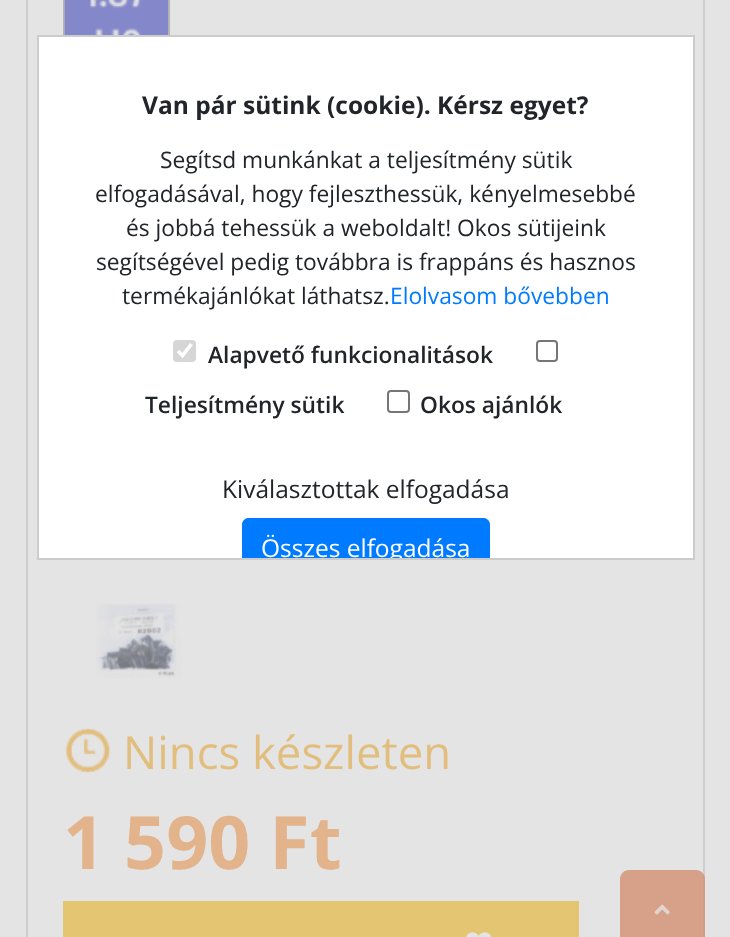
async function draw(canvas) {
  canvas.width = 730
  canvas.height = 937
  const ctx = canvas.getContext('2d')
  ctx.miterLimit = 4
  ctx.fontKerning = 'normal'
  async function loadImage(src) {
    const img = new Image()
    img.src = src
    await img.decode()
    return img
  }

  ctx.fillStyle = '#e4e4e4'
  ctx.fillRect(0, 0, 730, 937)
  ctx.strokeStyle = '#cecece'
  ctx.lineWidth = 2
  ctx.strokeRect(27, -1, 677, 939)
  ctx.strokeStyle = '#b4b4b4'
  ctx.strokeRect(64, -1, 105, 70)
  ctx.fillStyle = '#fff'
  ctx.beginPath()
  ctx.rect(38, 36, 656, 523)
  ctx.fill()
  ctx.strokeStyle = '#ccc'
  ctx.stroke()
  ctx.font = 'bold 24.5px Open Sans'
  ctx.fillStyle = '#212529'
  ctx.fillText('Van pár sütink (cookie). Kérsz egyet?', 142, 114)
  ctx.font = '22.75px Open Sans'
  ctx.fillText('Segítsd munkánkat a teljesítmény sütik', 160, 168)
  ctx.fillText('elfogadásával, hogy fejleszthessük, kényelmesebbé', 95, 202)
  ctx.fillText('és jobbá tehessük a weboldalt! Okos sütijeink', 126, 236)
  ctx.fillText('segítségével pedig továbbra is frappáns és hasznos', 96, 270)
  ctx.fillText('termékajánlókat láthatsz.', 122, 304)
  ctx.fillStyle = '#007bff'
  ctx.fillText('Elolvasom bővebben', 390, 304)
  ctx.fillStyle = '#d6d6d6'
  ctx.beginPath()
  ctx.roundRect(173, 340, 23, 22, 4)
  ctx.fill()
  ctx.beginPath()
  ctx.moveTo(178, 351)
  ctx.lineTo(182.5, 355.5)
  ctx.lineTo(191.5, 344)
  ctx.strokeStyle = '#fff'
  ctx.lineWidth = 3.6
  ctx.stroke()
  ctx.font = '600 22.75px Open Sans'
  ctx.fillStyle = '#212529'
  ctx.fillText('Alapvető funkcionalitások', 208, 363)
  ctx.beginPath()
  ctx.roundRect(537, 341, 20, 20, 3)
  ctx.strokeStyle = '#767676'
  ctx.lineWidth = 2
  ctx.stroke()
  ctx.fillText('Teljesítmény sütik', 145, 413)
  ctx.beginPath()
  ctx.roundRect(388, 391, 21, 21, 3)
  ctx.stroke()
  ctx.fillText('Okos ajánlók', 420, 413)
  ctx.font = '24.5px Open Sans'
  ctx.fillText('Kiválasztottak elfogadása', 222, 498)
  ctx.fillStyle = '#007bff'
  ctx.beginPath()
  ctx.roundRect(242, 518, 248, 40, [7, 7, 0, 0])
  ctx.fill()
  ctx.save()
  ctx.beginPath()
  ctx.rect(39, 37, 654, 521)
  ctx.clip()
  ctx.beginPath()
  ctx.roundRect(243, 519, 246, 56, 6)
  ctx.strokeStyle = '#007bff'
  ctx.stroke()
  ctx.fillStyle = '#fff'
  ctx.fillText('Összes elfogadása', 261, 557)
  ctx.restore()
  ctx.drawImage(await loadImage('image0.png'), 64, 0, 104, 35)
  ctx.drawImage(await loadImage('image1.png'), 96, 603, 86, 76)
  ctx.drawImage(await loadImage('image2.png'), 66, 728, 45, 45)
  ctx.font = '45.5px Open Sans'
  ctx.fillStyle = '#e2be7e'
  ctx.fillText('Nincs készleten', 123, 769)
  ctx.font = 'bold 73.5px Open Sans'
  ctx.fillStyle = '#e3b38b'
  ctx.fillText('1 590 Ft', 63, 869)
  ctx.fillStyle = '#e4c672'
  ctx.fillRect(63, 901, 516, 36)
  ctx.drawImage(await loadImage('image3.png'), 466, 932, 26, 5)
  ctx.fillStyle = '#d18a6bbf'
  ctx.beginPath()
  ctx.moveTo(629, 870)
  ctx.lineTo(696, 870)
  ctx.bezierCurveTo(701, 870, 705, 874, 705, 879)
  ctx.lineTo(705, 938)
  ctx.lineTo(620, 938)
  ctx.lineTo(620, 879)
  ctx.bezierCurveTo(620, 874, 624, 870, 629, 870)
  ctx.closePath()
  ctx.fill()
  ctx.drawImage(await loadImage('image4.png'), 654, 904, 16, 11)
}

draw(document.querySelector('canvas'))
